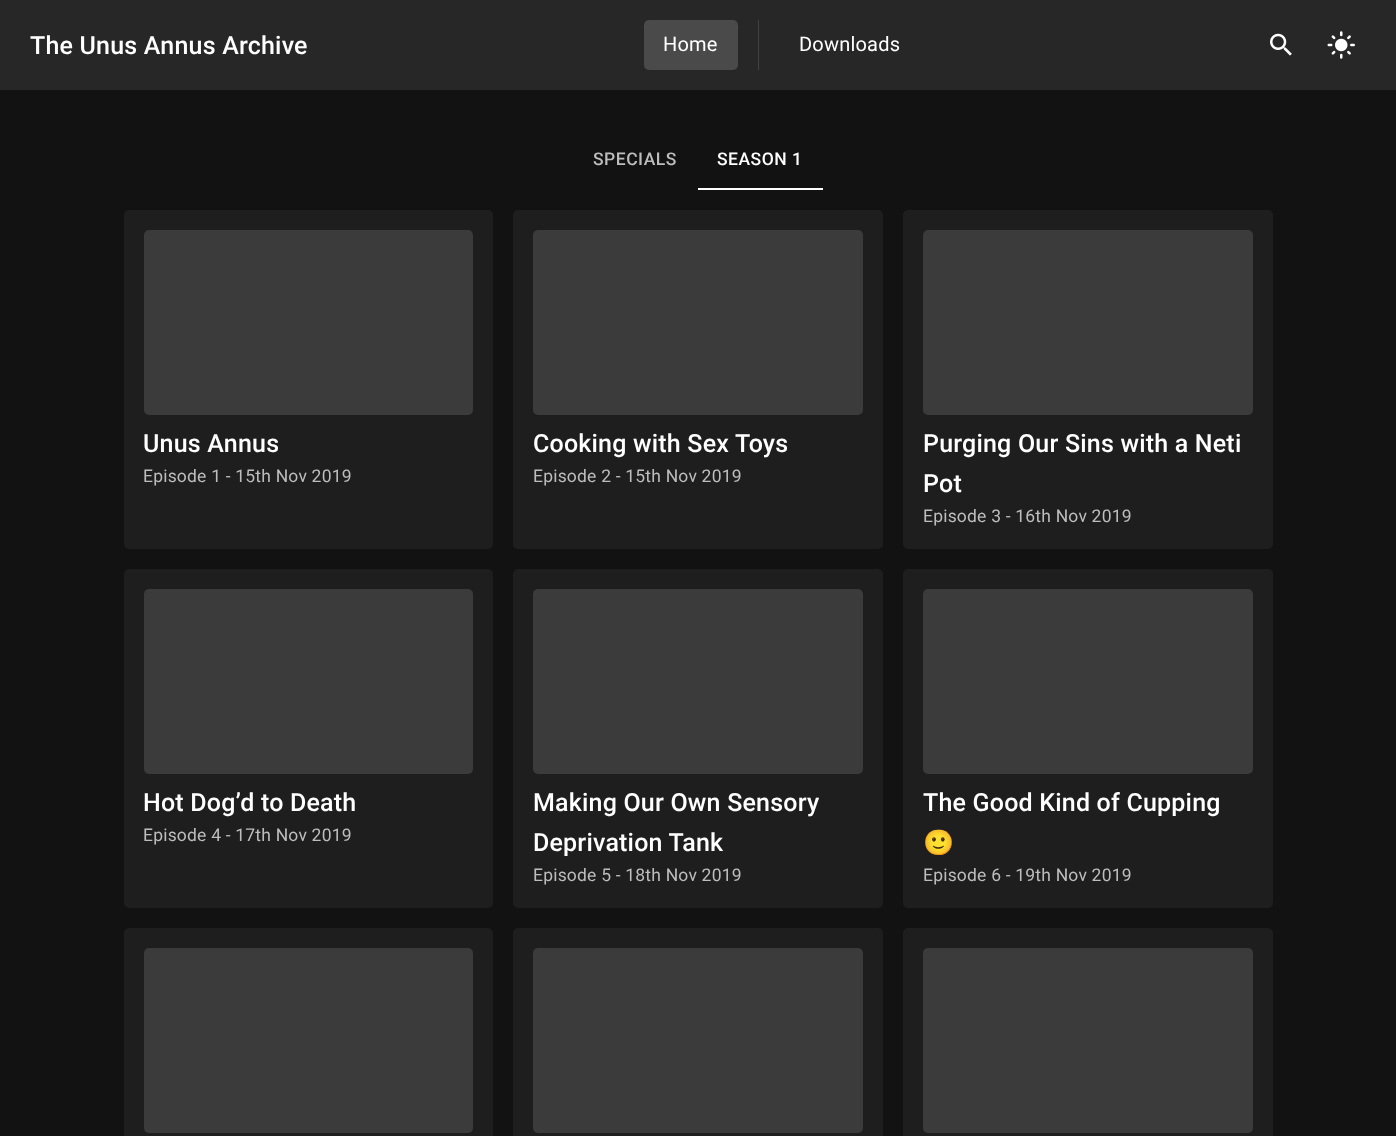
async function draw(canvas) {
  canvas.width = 1396
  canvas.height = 1136
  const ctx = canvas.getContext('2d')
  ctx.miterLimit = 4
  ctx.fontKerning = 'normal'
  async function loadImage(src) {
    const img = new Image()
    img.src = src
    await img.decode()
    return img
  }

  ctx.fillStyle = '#121212'
  ctx.fillRect(0, 0, 1396, 1136)
  ctx.fillStyle = '#272727'
  ctx.fillRect(0, 0, 1396, 90)
  ctx.letterSpacing = '0.2px'
  ctx.font = '500 25px Roboto'
  ctx.fillStyle = '#fff'
  ctx.fillText('The Unus Annus Archive', 30, 54)
  ctx.fillStyle = '#4a4a4a'
  ctx.beginPath()
  ctx.roundRect(644, 20, 94, 50, 5)
  ctx.fill()
  ctx.font = '20px Roboto'
  ctx.fillStyle = '#fff'
  ctx.fillText('Home', 663, 51)
  ctx.fillStyle = '#414141'
  ctx.fillRect(758, 20, 1, 50)
  ctx.fillStyle = '#fff'
  ctx.fillText('Downloads', 799, 51)
  ctx.drawImage(await loadImage('image0.png'), 1270, 33, 22, 23)
  ctx.drawImage(await loadImage('image1.png'), 1327, 31, 28, 28)
  ctx.letterSpacing = '0.5px'
  ctx.font = '500 17.5px Roboto'
  ctx.fillStyle = '#bdbdbd'
  ctx.fillText('SPECIALS', 593, 165)
  ctx.fillStyle = '#fff'
  ctx.fillText('SEASON 1', 717, 165)
  ctx.fillRect(698, 188, 125, 2)
  ctx.fillStyle = '#1e1e1e'
  ctx.beginPath()
  ctx.roundRect(124, 210, 369, 339, 5)
  ctx.fill()
  ctx.fillStyle = '#3b3b3b'
  ctx.beginPath()
  ctx.roundRect(144, 230, 329, 185, 5)
  ctx.fill()
  ctx.letterSpacing = '0.2px'
  ctx.font = '500 25px Roboto'
  ctx.fillStyle = '#fff'
  ctx.fillText('Unus Annus', 143, 452)
  ctx.font = '17.5px Roboto'
  ctx.fillStyle = '#bdbdbd'
  ctx.fillText('Episode 1 - 15th Nov 2019', 143, 482)
  ctx.fillStyle = '#1e1e1e'
  ctx.beginPath()
  ctx.roundRect(513, 210, 370, 339, 5)
  ctx.fill()
  ctx.fillStyle = '#3b3b3b'
  ctx.beginPath()
  ctx.roundRect(533, 230, 330, 185, 5)
  ctx.fill()
  ctx.font = '500 25px Roboto'
  ctx.fillStyle = '#fff'
  ctx.fillText('Cooking with Sex Toys', 533, 452)
  ctx.font = '17.5px Roboto'
  ctx.fillStyle = '#bdbdbd'
  ctx.fillText('Episode 2 - 15th Nov 2019', 533, 482)
  ctx.fillStyle = '#1e1e1e'
  ctx.beginPath()
  ctx.roundRect(903, 210, 370, 339, 5)
  ctx.fill()
  ctx.fillStyle = '#3b3b3b'
  ctx.beginPath()
  ctx.roundRect(923, 230, 330, 185, 5)
  ctx.fill()
  ctx.font = '500 25px Roboto'
  ctx.fillStyle = '#fff'
  ctx.fillText('Purging Our Sins with a Neti', 923, 452)
  ctx.fillText('Pot', 923, 492)
  ctx.font = '17.5px Roboto'
  ctx.fillStyle = '#bdbdbd'
  ctx.fillText('Episode 3 - 16th Nov 2019', 923, 522)
  ctx.fillStyle = '#1e1e1e'
  ctx.beginPath()
  ctx.roundRect(124, 569, 369, 339, 5)
  ctx.fill()
  ctx.fillStyle = '#3b3b3b'
  ctx.beginPath()
  ctx.roundRect(144, 589, 329, 185, 5)
  ctx.fill()
  ctx.font = '500 25px Roboto'
  ctx.fillStyle = '#fff'
  ctx.fillText('Hot Dog’d to Death', 143, 811)
  ctx.font = '17.5px Roboto'
  ctx.fillStyle = '#bdbdbd'
  ctx.fillText('Episode 4 - 17th Nov 2019', 143, 841)
  ctx.fillStyle = '#1e1e1e'
  ctx.beginPath()
  ctx.roundRect(513, 569, 370, 339, 5)
  ctx.fill()
  ctx.fillStyle = '#3b3b3b'
  ctx.beginPath()
  ctx.roundRect(533, 589, 330, 185, 5)
  ctx.fill()
  ctx.font = '500 25px Roboto'
  ctx.fillStyle = '#fff'
  ctx.fillText('Making Our Own Sensory', 533, 811)
  ctx.fillText('Deprivation Tank', 533, 851)
  ctx.font = '17.5px Roboto'
  ctx.fillStyle = '#bdbdbd'
  ctx.fillText('Episode 5 - 18th Nov 2019', 533, 881)
  ctx.fillStyle = '#1e1e1e'
  ctx.beginPath()
  ctx.roundRect(903, 569, 370, 339, 5)
  ctx.fill()
  ctx.fillStyle = '#3b3b3b'
  ctx.beginPath()
  ctx.roundRect(923, 589, 330, 185, 5)
  ctx.fill()
  ctx.font = '500 25px Roboto'
  ctx.fillStyle = '#fff'
  ctx.fillText('The Good Kind of Cupping', 923, 811)
  ctx.font = '25px Noto Color Emoji'
  ctx.fillText('🙂', 923, 851)
  ctx.font = '17.5px Roboto'
  ctx.fillStyle = '#bdbdbd'
  ctx.fillText('Episode 6 - 19th Nov 2019', 923, 881)
  ctx.fillStyle = '#1e1e1e'
  ctx.beginPath()
  ctx.roundRect(124, 928, 369, 208, [5, 5, 0, 0])
  ctx.fill()
  ctx.fillStyle = '#3b3b3b'
  ctx.beginPath()
  ctx.roundRect(144, 948, 329, 185, 5)
  ctx.fill()
  ctx.fillStyle = '#1e1e1e'
  ctx.beginPath()
  ctx.roundRect(513, 928, 370, 208, [5, 5, 0, 0])
  ctx.fill()
  ctx.fillStyle = '#3b3b3b'
  ctx.beginPath()
  ctx.roundRect(533, 948, 330, 185, 5)
  ctx.fill()
  ctx.fillStyle = '#1e1e1e'
  ctx.beginPath()
  ctx.roundRect(903, 928, 370, 208, [5, 5, 0, 0])
  ctx.fill()
  ctx.fillStyle = '#3b3b3b'
  ctx.beginPath()
  ctx.roundRect(923, 948, 330, 185, 5)
  ctx.fill()
}

draw(document.querySelector('canvas'))
